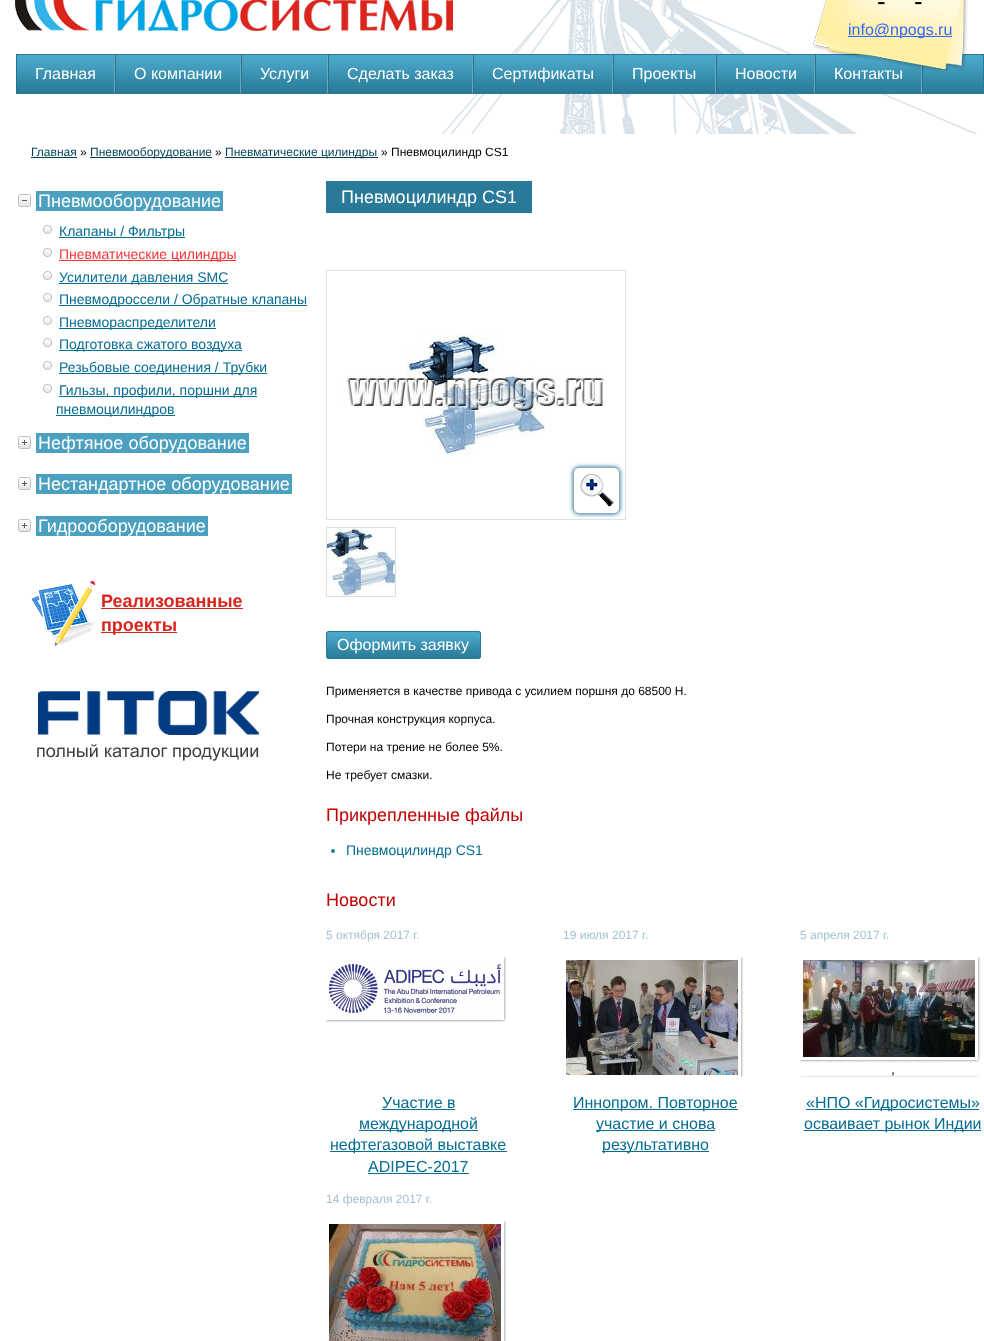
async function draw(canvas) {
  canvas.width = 984
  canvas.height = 1341
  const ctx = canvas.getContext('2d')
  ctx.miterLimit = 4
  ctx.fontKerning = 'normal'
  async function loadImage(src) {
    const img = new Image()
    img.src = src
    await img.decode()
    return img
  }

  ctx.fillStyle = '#fff'
  ctx.fillRect(0, 0, 984, 1341)
  ctx.drawImage(await loadImage('image0.png'), 441, 0, 537, 134)
  ctx.drawImage(await loadImage('image1.png'), 15, 0, 438, 31)
  ctx.drawImage(await loadImage('image3.png'), 17, 55, 966, 38)
  ctx.fillStyle = '#297a98'
  ctx.fillRect(16, 54, 968, 1)
  ctx.fillStyle = '#72a7ba'
  ctx.fillRect(814, 55, 1, 38)
  ctx.fillRect(921, 64, 1, 29)
  ctx.fillStyle = '#1e7494'
  ctx.fillRect(922, 64, 1, 29)
  ctx.fillRect(815, 55, 1, 38)
  ctx.font = '16px Liberation Sans'
  ctx.fillStyle = '#fff'
  ctx.fillText('Контакты', 834, 79)
  ctx.drawImage(await loadImage('image2.png'), 813, 0, 155, 70)
  ctx.font = '26px Liberation Sans'
  ctx.fillStyle = '#000'
  ctx.fillText('-', 877, 10)
  ctx.fillText('-', 914, 10)
  ctx.fillStyle = '#36f'
  ctx.fillRect(848, 36, 104, 1)
  ctx.font = '16px Liberation Sans'
  ctx.fillText('info@npogs.ru', 848, 35)
  ctx.fillStyle = '#297a98'
  ctx.fillRect(983, 54, 1, 40)
  ctx.fillRect(16, 93, 968, 1)
  ctx.fillStyle = '#72a7ba'
  ctx.fillRect(114, 55, 1, 38)
  ctx.fillStyle = '#1e7494'
  ctx.fillRect(16, 55, 1, 38)
  ctx.fillStyle = '#fff'
  ctx.fillText('Главная', 35, 79)
  ctx.fillStyle = '#72a7ba'
  ctx.fillRect(240, 55, 1, 38)
  ctx.fillStyle = '#1e7494'
  ctx.fillRect(115, 55, 1, 38)
  ctx.fillStyle = '#fff'
  ctx.fillText('О компании', 134, 79)
  ctx.fillStyle = '#72a7ba'
  ctx.fillRect(327, 55, 1, 38)
  ctx.fillStyle = '#1e7494'
  ctx.fillRect(241, 55, 1, 38)
  ctx.fillStyle = '#fff'
  ctx.fillText('Услуги', 260, 79)
  ctx.fillStyle = '#72a7ba'
  ctx.fillRect(472, 55, 1, 38)
  ctx.fillStyle = '#1e7494'
  ctx.fillRect(328, 55, 1, 38)
  ctx.fillStyle = '#fff'
  ctx.fillText('Сделать заказ', 347, 79)
  ctx.fillStyle = '#72a7ba'
  ctx.fillRect(612, 55, 1, 38)
  ctx.fillStyle = '#1e7494'
  ctx.fillRect(473, 55, 1, 38)
  ctx.fillStyle = '#fff'
  ctx.fillText('Сертификаты', 492, 79)
  ctx.fillStyle = '#72a7ba'
  ctx.fillRect(715, 55, 1, 38)
  ctx.fillStyle = '#1e7494'
  ctx.fillRect(613, 55, 1, 38)
  ctx.fillStyle = '#fff'
  ctx.fillText('Проекты', 632, 79)
  ctx.fillStyle = '#1e7494'
  ctx.fillRect(716, 55, 1, 38)
  ctx.fillStyle = '#fff'
  ctx.fillText('Новости', 735, 79)
  ctx.font = '12px Liberation Sans'
  ctx.fillStyle = '#003f56'
  ctx.fillText('Главная', 31, 156)
  ctx.fillRect(31, 157, 46, 1)
  ctx.fillStyle = '#000'
  ctx.fillText('»', 80, 156)
  ctx.fillStyle = '#003f56'
  ctx.fillRect(90, 157, 122, 1)
  ctx.fillText('Пневмооборудование', 90, 156)
  ctx.fillStyle = '#000'
  ctx.fillText('»', 215, 156)
  ctx.fillStyle = '#003f56'
  ctx.fillRect(225, 157, 153, 1)
  ctx.fillText('Пневматические цилиндры', 225, 156)
  ctx.fillStyle = '#000'
  ctx.fillText('» Пневмоцилиндр CS1', 381, 156)
  ctx.drawImage(await loadImage('image4.png'), 18, 194, 13, 13)
  ctx.fillStyle = '#4ba0c0'
  ctx.fillRect(36, 191, 187, 20)
  ctx.font = '18px Liberation Sans'
  ctx.fillStyle = '#fff'
  ctx.fillText('Пневмооборудование', 38, 207)
  ctx.drawImage(await loadImage('image5.png'), 43, 225, 9, 9)
  ctx.fillStyle = '#056c92'
  ctx.fillRect(59, 237, 126, 1)
  ctx.font = '14px Liberation Sans'
  ctx.fillText('Клапаны / Фильтры', 59, 236)
  ctx.drawImage(await loadImage('image5.png'), 43, 248, 9, 9)
  ctx.fillStyle = '#f33'
  ctx.fillRect(59, 260, 177, 1)
  ctx.fillText('Пневматические цилиндры', 59, 259)
  ctx.drawImage(await loadImage('image5.png'), 43, 271, 9, 9)
  ctx.fillStyle = '#056c92'
  ctx.fillRect(59, 283, 169, 1)
  ctx.fillText('Усилители давления SMC', 59, 282)
  ctx.drawImage(await loadImage('image5.png'), 43, 293, 9, 9)
  ctx.fillRect(59, 305, 248, 1)
  ctx.fillText('Пневмодроссели / Обратные клапаны', 59, 304)
  ctx.drawImage(await loadImage('image5.png'), 43, 316, 9, 9)
  ctx.fillRect(59, 328, 157, 1)
  ctx.fillText('Пневмораспределители', 59, 327)
  ctx.drawImage(await loadImage('image5.png'), 43, 338, 9, 9)
  ctx.fillRect(59, 350, 183, 1)
  ctx.fillText('Подготовка сжатого воздуха', 59, 349)
  ctx.drawImage(await loadImage('image5.png'), 43, 361, 9, 9)
  ctx.fillRect(59, 373, 208, 1)
  ctx.fillText('Резьбовые соединения / Трубки', 59, 372)
  ctx.drawImage(await loadImage('image5.png'), 43, 384, 9, 9)
  ctx.fillRect(59, 396, 198, 1)
  ctx.fillText('Гильзы, профили, поршни для', 59, 395)
  ctx.fillRect(56, 415, 119, 1)
  ctx.fillText('пневмоцилиндров', 56, 414)
  ctx.drawImage(await loadImage('image6.png'), 18, 436, 13, 13)
  ctx.fillStyle = '#4ba0c0'
  ctx.fillRect(36, 433, 213, 20)
  ctx.font = '18px Liberation Sans'
  ctx.fillStyle = '#fff'
  ctx.fillText('Нефтяное оборудование', 38, 449)
  ctx.drawImage(await loadImage('image6.png'), 18, 477, 13, 13)
  ctx.fillStyle = '#4ba0c0'
  ctx.fillRect(36, 474, 256, 20)
  ctx.fillStyle = '#fff'
  ctx.fillText('Нестандартное оборудование', 38, 490)
  ctx.drawImage(await loadImage('image6.png'), 18, 519, 13, 13)
  ctx.fillStyle = '#4ba0c0'
  ctx.fillRect(36, 516, 172, 20)
  ctx.fillStyle = '#fff'
  ctx.fillText('Гидрооборудование', 38, 532)
  ctx.drawImage(await loadImage('image7.png'), 31, 580, 65, 66)
  ctx.font = 'bold 18px Liberation Sans'
  ctx.fillStyle = '#da251d'
  ctx.fillText('Реализованные', 101, 607)
  ctx.fillRect(101, 608, 142, 1)
  ctx.fillRect(101, 632, 76, 1)
  ctx.fillText('проекты', 101, 631)
  ctx.drawImage(await loadImage('image8.png'), 37, 691, 222, 70)
  ctx.fillStyle = '#297a98'
  ctx.fillRect(326, 181, 206, 32)
  ctx.font = '18px Liberation Sans'
  ctx.fillStyle = '#fff'
  ctx.fillText('Пневмоцилиндр CS1', 341, 203)
  ctx.strokeStyle = '#d7e1e8'
  ctx.strokeRect(326.5, 270.5, 299, 249)
  ctx.drawImage(await loadImage('image9.png'), 343, 334, 264, 129)
  ctx.fillStyle = '#056c92'
  ctx.filter = 'blur(2px)'
  ctx.beginPath()
  ctx.roundRect(573, 467, 47, 47, 6)
  ctx.fill()
  ctx.filter = 'none'
  ctx.drawImage(await loadImage('image10.png'), 574, 468, 45, 45)
  ctx.beginPath()
  ctx.roundRect(573.5, 467.5, 46, 46, 5.5)
  ctx.strokeStyle = '#97a9b0'
  ctx.stroke()
  ctx.strokeStyle = '#d7e1e8'
  ctx.strokeRect(326.5, 527.5, 69, 69)
  ctx.drawImage(await loadImage('image11.png'), 327, 528, 68, 68)
  ctx.drawImage(await loadImage('image12.png'), 326, 631, 155, 28)
  ctx.font = '16px Liberation Sans'
  ctx.fillStyle = '#fff'
  ctx.fillText('Оформить заявку', 337, 650)
  ctx.font = '12px Liberation Sans'
  ctx.fillStyle = '#000'
  ctx.fillText('Применяется в качестве привода с усилием поршня до 68500 Н.', 326, 695)
  ctx.fillText('Прочная конструкция корпуса.', 326, 723)
  ctx.fillText('Потери на трение не более 5%.', 326, 751)
  ctx.fillText('Не требует смазки.', 326, 779)
  ctx.font = '18px Liberation Sans'
  ctx.fillStyle = '#c00000'
  ctx.fillText('Прикрепленные файлы', 326, 821)
  ctx.fillStyle = '#297a98'
  ctx.beginPath()
  ctx.arc(333, 851, 2, 0, 2 * Math.PI)
  ctx.fill()
  ctx.font = '14px Liberation Sans'
  ctx.fillStyle = '#056c92'
  ctx.fillText('Пневмоцилиндр CS1', 346, 855)
  ctx.font = '18px Liberation Sans'
  ctx.fillStyle = '#c00000'
  ctx.fillText('Новости', 326, 906)
  ctx.font = '12px Liberation Sans'
  ctx.fillStyle = '#a0c2d0'
  ctx.fillText('5 октября 2017 г.', 326, 939)
  ctx.save()
  ctx.beginPath()
  ctx.rect(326, 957, 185, 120)
  ctx.clip()
  ctx.beginPath()
  ctx.moveTo(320, 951)
  ctx.lineTo(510, 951)
  ctx.lineTo(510, 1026)
  ctx.lineTo(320, 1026)
  ctx.closePath()
  ctx.moveTo(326, 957)
  ctx.lineTo(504, 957)
  ctx.lineTo(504, 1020)
  ctx.lineTo(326, 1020)
  ctx.closePath()
  ctx.clip('evenodd')
  ctx.fillStyle = '#666'
  ctx.filter = 'blur(1.5px)'
  ctx.beginPath()
  ctx.rect(326, 957, 178, 63)
  ctx.fill()
  ctx.filter = 'none'
  ctx.restore()
  ctx.drawImage(await loadImage('image13.png'), 329, 963, 172, 51)
  ctx.font = '16px Liberation Sans'
  ctx.fillStyle = '#056c92'
  ctx.fillText('Участие в', 382, 1108)
  ctx.fillRect(382, 1109, 73, 1)
  ctx.fillRect(359, 1130, 119, 1)
  ctx.fillText('международной', 359, 1129)
  ctx.fillRect(330, 1151, 177, 1)
  ctx.fillText('нефтегазовой выставке', 330, 1150)
  ctx.fillText('ADIPEC-2017', 368, 1172)
  ctx.fillRect(368, 1173, 101, 1)
  ctx.font = '12px Liberation Sans'
  ctx.fillStyle = '#a0c2d0'
  ctx.fillText('19 июля 2017 г.', 563, 939)
  ctx.save()
  ctx.beginPath()
  ctx.rect(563, 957, 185, 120)
  ctx.clip()
  ctx.beginPath()
  ctx.rect(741, 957, 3, 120)
  ctx.clip()
  ctx.fillStyle = '#666'
  ctx.filter = 'blur(1.5px)'
  ctx.beginPath()
  ctx.rect(563, 957, 178, 121)
  ctx.fill()
  ctx.filter = 'none'
  ctx.restore()
  ctx.drawImage(await loadImage('image14.png'), 566, 960, 172, 115)
  ctx.fillStyle = '#056c92'
  ctx.fillRect(573, 1109, 165, 1)
  ctx.font = '16px Liberation Sans'
  ctx.fillText('Иннопром. Повторное', 573, 1108)
  ctx.fillRect(596, 1130, 119, 1)
  ctx.fillText('участие и снова', 596, 1129)
  ctx.fillRect(602, 1151, 107, 1)
  ctx.fillText('результативно', 602, 1150)
  ctx.font = '12px Liberation Sans'
  ctx.fillStyle = '#a0c2d0'
  ctx.fillText('5 апреля 2017 г.', 800, 939)
  ctx.save()
  ctx.beginPath()
  ctx.rect(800, 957, 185, 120)
  ctx.clip()
  ctx.beginPath()
  ctx.moveTo(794, 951)
  ctx.lineTo(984, 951)
  ctx.lineTo(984, 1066)
  ctx.lineTo(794, 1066)
  ctx.closePath()
  ctx.moveTo(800, 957)
  ctx.lineTo(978, 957)
  ctx.lineTo(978, 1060)
  ctx.lineTo(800, 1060)
  ctx.closePath()
  ctx.clip('evenodd')
  ctx.fillStyle = '#666'
  ctx.filter = 'blur(1.5px)'
  ctx.beginPath()
  ctx.rect(800, 957, 178, 103)
  ctx.fill()
  ctx.filter = 'none'
  ctx.restore()
  ctx.drawImage(await loadImage('image15.png'), 803, 960, 172, 97)
  ctx.fillStyle = '#056c92'
  ctx.fillRect(806, 1109, 173, 1)
  ctx.fillRect(804, 1130, 177, 1)
  ctx.save()
  ctx.beginPath()
  ctx.rect(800, 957, 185, 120)
  ctx.clip()
  ctx.fillStyle = '#666'
  ctx.filter = 'blur(1.5px)'
  ctx.beginPath()
  ctx.rect(800, 1078, 178, 103)
  ctx.fill()
  ctx.filter = 'none'
  ctx.restore()
  ctx.font = '14px Liberation Sans'
  ctx.fillStyle = '#000'
  ctx.fillText(',', 891, 1074)
  ctx.font = '16px Liberation Sans'
  ctx.fillStyle = '#056c92'
  ctx.fillText('«НПО «Гидросистемы»', 806, 1108)
  ctx.fillText('осваивает рынок Индии', 804, 1129)
  ctx.font = '12px Liberation Sans'
  ctx.fillStyle = '#a0c2d0'
  ctx.fillText('14 февраля 2017 г.', 326, 1203)
  ctx.save()
  ctx.beginPath()
  ctx.rect(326, 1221, 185, 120)
  ctx.clip()
  ctx.beginPath()
  ctx.rect(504, 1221, 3, 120)
  ctx.clip()
  ctx.fillStyle = '#666'
  ctx.filter = 'blur(1.5px)'
  ctx.beginPath()
  ctx.rect(326, 1221, 178, 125)
  ctx.fill()
  ctx.filter = 'none'
  ctx.restore()
  ctx.drawImage(await loadImage('image16.png'), 329, 1224, 172, 117)
}

draw(document.querySelector('canvas'))
